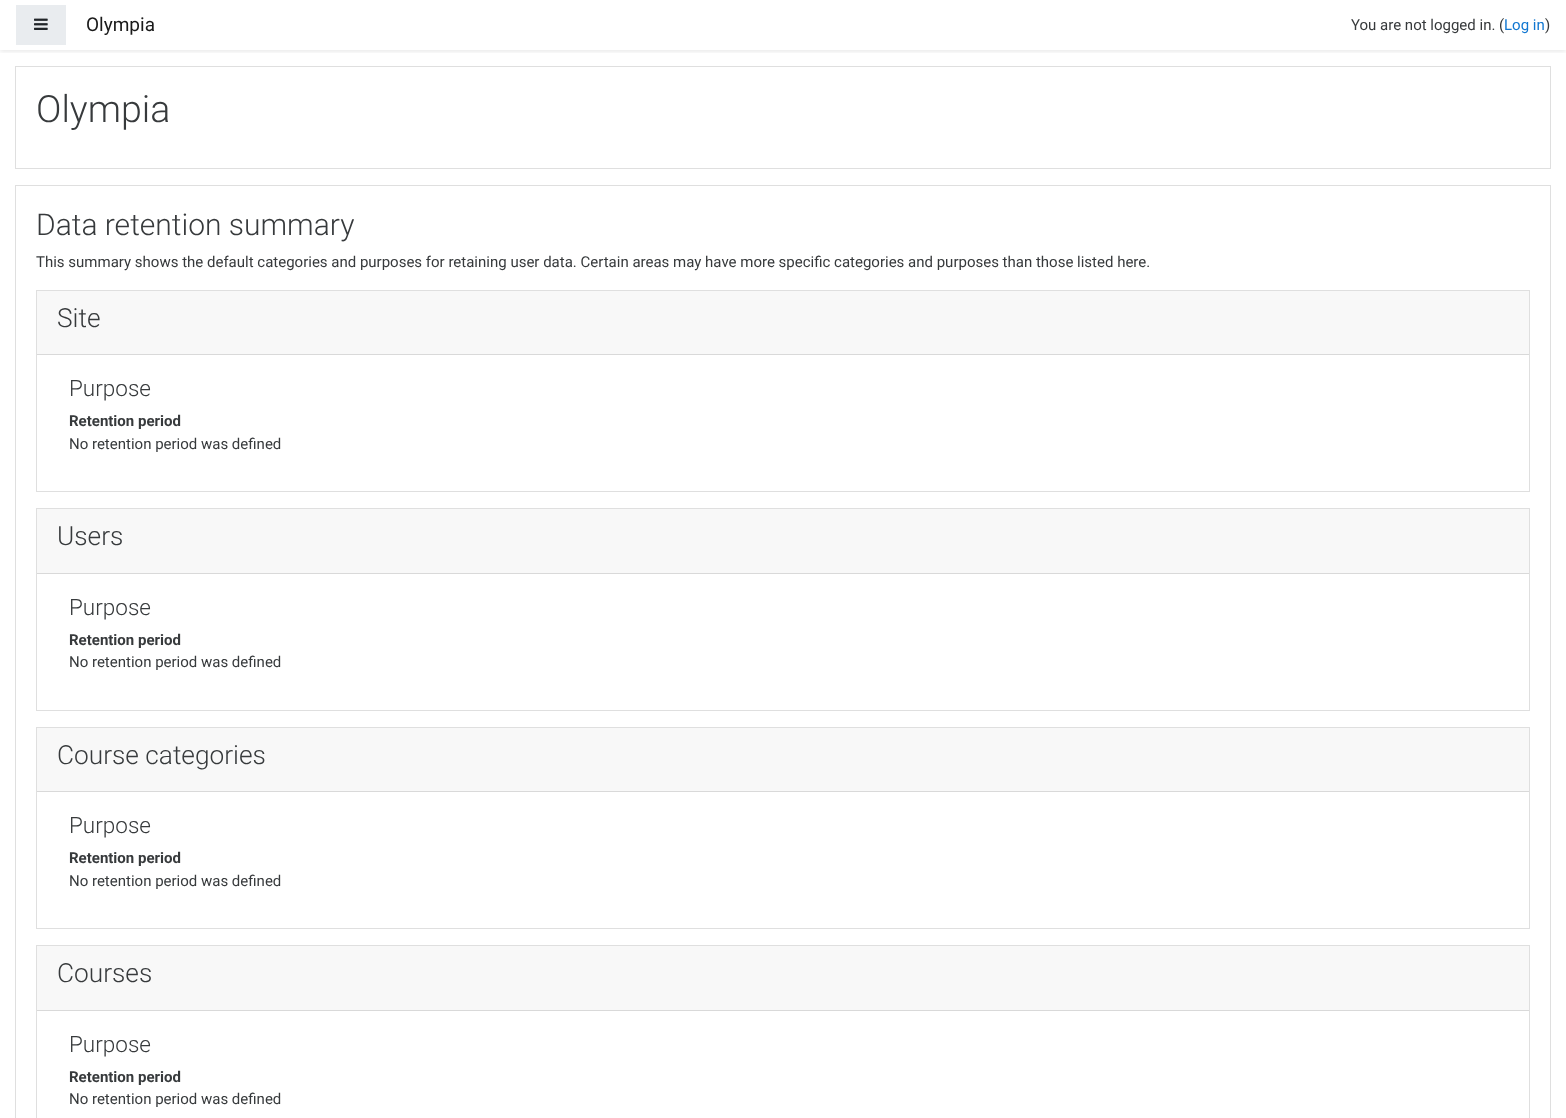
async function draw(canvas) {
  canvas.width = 1566
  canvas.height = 1118
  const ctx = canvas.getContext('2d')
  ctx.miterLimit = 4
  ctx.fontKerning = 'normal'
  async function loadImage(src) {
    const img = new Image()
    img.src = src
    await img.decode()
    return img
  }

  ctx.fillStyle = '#fff'
  ctx.fillRect(0, 0, 1566, 1118)
  ctx.save()
  ctx.beginPath()
  ctx.rect(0, 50, 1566, 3)
  ctx.clip()
  ctx.fillStyle = '#00000014'
  ctx.filter = 'blur(2px)'
  ctx.beginPath()
  ctx.rect(0, 2, 1566, 50)
  ctx.fill()
  ctx.filter = 'none'
  ctx.restore()
  ctx.fillStyle = '#e9ecef'
  ctx.fillRect(16, 5, 50, 40)
  ctx.drawImage(await loadImage('image0.png'), 34, 18, 14, 12)
  ctx.font = '19px Roboto'
  ctx.fillStyle = '#1a1a1a'
  ctx.fillText('Olympia', 86, 31)
  ctx.font = '15px Roboto'
  ctx.fillStyle = '#373a3c'
  ctx.fillText('You are not logged in. (', 1351, 30)
  ctx.fillStyle = '#1177d1'
  ctx.fillText('Log in', 1504, 30)
  ctx.fillStyle = '#373a3c'
  ctx.fillText(')', 1545, 30)
  ctx.strokeStyle = '#dfdfdf'
  ctx.strokeRect(15.5, 66.5, 1535, 102)
  ctx.font = '300 37.5px Roboto'
  ctx.fillText('Olympia', 36, 122)
  ctx.strokeRect(15.5, 185.5, 1535, 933)
  ctx.font = '300 30px Roboto'
  ctx.fillText('Data retention summary', 36, 235)
  ctx.font = '15px Roboto'
  ctx.fillText('This summary shows the default categories and purposes for retaining user data. Certain areas may have more specific categories and purposes than those listed here.', 36, 267)
  ctx.strokeRect(36.5, 290.5, 1493, 201)
  ctx.fillStyle = '#f8f8f8'
  ctx.fillRect(37, 291, 1492, 63)
  ctx.fillStyle = '#d9d9d9'
  ctx.fillRect(37, 354, 1492, 1)
  ctx.font = '300 26.25px Roboto'
  ctx.fillStyle = '#373a3c'
  ctx.fillText('Site', 57, 327)
  ctx.font = '300 22.5px Roboto'
  ctx.fillText('Purpose', 69, 396)
  ctx.font = 'bold 15px Roboto'
  ctx.fillText('Retention period', 69, 426)
  ctx.font = '15px Roboto'
  ctx.fillText('No retention period was defined', 69, 449)
  ctx.strokeRect(36.5, 508.5, 1493, 202)
  ctx.fillStyle = '#f8f8f8'
  ctx.fillRect(37, 509, 1492, 64)
  ctx.fillStyle = '#d9d9d9'
  ctx.fillRect(37, 573, 1492, 1)
  ctx.font = '300 26.25px Roboto'
  ctx.fillStyle = '#373a3c'
  ctx.fillText('Users', 57, 545)
  ctx.font = '300 22.5px Roboto'
  ctx.fillText('Purpose', 69, 615)
  ctx.font = 'bold 15px Roboto'
  ctx.fillText('Retention period', 69, 645)
  ctx.font = '15px Roboto'
  ctx.fillText('No retention period was defined', 69, 667)
  ctx.strokeRect(36.5, 727.5, 1493, 201)
  ctx.fillStyle = '#f8f8f8'
  ctx.fillRect(37, 728, 1492, 63)
  ctx.fillStyle = '#d9d9d9'
  ctx.fillRect(37, 791, 1492, 1)
  ctx.font = '300 26.25px Roboto'
  ctx.fillStyle = '#373a3c'
  ctx.fillText('Course categories', 57, 764)
  ctx.font = '300 22.5px Roboto'
  ctx.fillText('Purpose', 69, 833)
  ctx.font = 'bold 15px Roboto'
  ctx.fillText('Retention period', 69, 863)
  ctx.font = '15px Roboto'
  ctx.fillText('No retention period was defined', 69, 886)
  ctx.strokeRect(36.5, 945.5, 1493, 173)
  ctx.fillStyle = '#f8f8f8'
  ctx.fillRect(37, 946, 1492, 64)
  ctx.fillStyle = '#d9d9d9'
  ctx.fillRect(37, 1010, 1492, 1)
  ctx.font = '300 26.25px Roboto'
  ctx.fillStyle = '#373a3c'
  ctx.fillText('Courses', 57, 982)
  ctx.font = '300 22.5px Roboto'
  ctx.fillText('Purpose', 69, 1052)
  ctx.font = 'bold 15px Roboto'
  ctx.fillText('Retention period', 69, 1082)
  ctx.font = '15px Roboto'
  ctx.fillText('No retention period was defined', 69, 1104)
}

draw(document.querySelector('canvas'))
